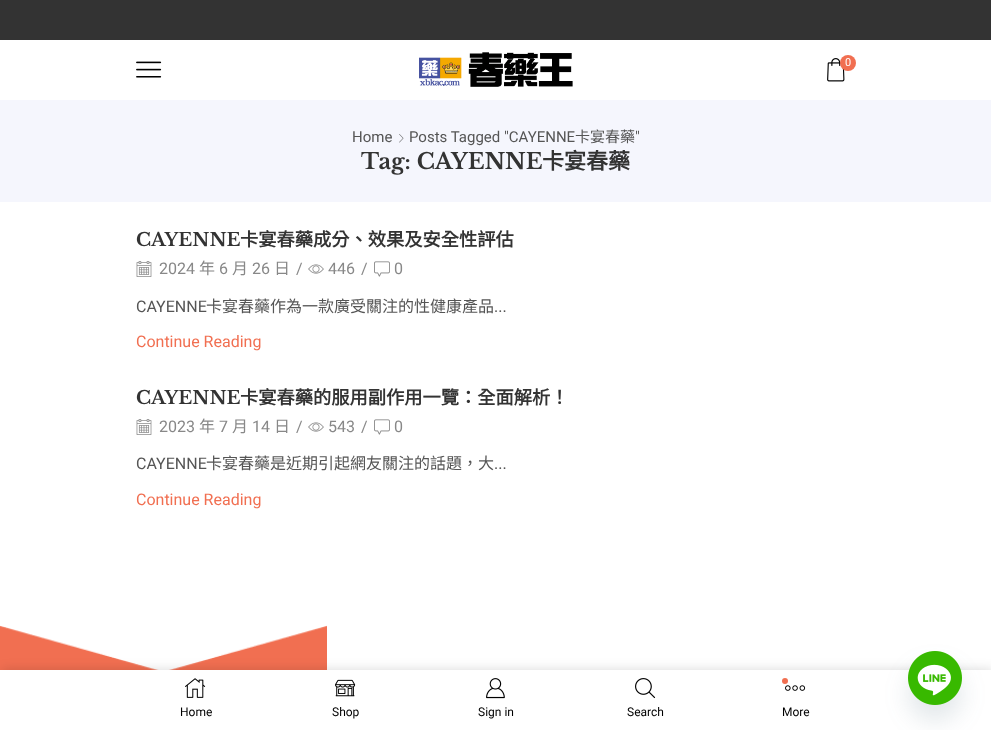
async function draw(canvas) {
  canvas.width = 991
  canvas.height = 730
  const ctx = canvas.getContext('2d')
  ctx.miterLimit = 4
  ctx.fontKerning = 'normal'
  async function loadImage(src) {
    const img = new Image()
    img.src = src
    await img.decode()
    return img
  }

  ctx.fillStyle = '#fff'
  ctx.fillRect(0, 0, 991, 730)
  ctx.fillStyle = '#333'
  ctx.fillRect(0, 0, 991, 40)
  ctx.drawImage(await loadImage('image0.png'), 136, 61, 26, 17)
  ctx.drawImage(await loadImage('image1.png'), 419, 52, 154, 35)
  ctx.drawImage(await loadImage('image2.png'), 827, 58, 18, 24)
  ctx.fillStyle = '#f16f51'
  ctx.beginPath()
  ctx.arc(848, 63, 8, 0, 2 * Math.PI)
  ctx.fill()
  ctx.font = '11px Roboto'
  ctx.fillStyle = '#fff'
  ctx.fillText('0', 845, 66)
  ctx.fillStyle = '#f5f6fd'
  ctx.fillRect(0, 100, 991, 102)
  ctx.font = '15px Roboto'
  ctx.fillStyle = '#555'
  ctx.fillText('Home', 352, 142)
  ctx.drawImage(await loadImage('image3.png'), 399, 134, 5, 9)
  ctx.fillText('Posts Tagged "CAYENNE', 409, 142)
  ctx.font = '15px Noto Sans CJK TC'
  ctx.fillText('卡宴春藥', 575, 142)
  ctx.font = '15px Roboto'
  ctx.fillText('"', 635, 142)
  ctx.font = 'bold 22px Libre Baskerville'
  ctx.fillStyle = '#333'
  ctx.fillText('Tag: CAYENNE', 361, 169)
  ctx.font = 'bold 22px Noto Sans CJK TC'
  ctx.fillText('卡宴春藥', 542, 169)
  ctx.font = 'bold 18.25px Libre Baskerville'
  ctx.fillText('CAYENNE', 136, 246)
  ctx.font = 'bold 18.25px Noto Sans CJK TC'
  ctx.fillText('卡宴春藥成分、效果及安全性評估', 240, 246)
  ctx.drawImage(await loadImage('image4.png'), 136, 261, 16, 16)
  ctx.font = '16px Roboto'
  ctx.fillStyle = '#888'
  ctx.fillText('2024', 159, 274)
  ctx.font = '16px Noto Sans CJK TC'
  ctx.fillText('年', 199, 274)
  ctx.font = '16px Roboto'
  ctx.fillText('6', 219, 274)
  ctx.font = '16px Noto Sans CJK TC'
  ctx.fillText('月', 232, 274)
  ctx.font = '16px Roboto'
  ctx.fillText('26', 252, 274)
  ctx.font = '16px Noto Sans CJK TC'
  ctx.fillText('日', 274, 274)
  ctx.font = '16px Roboto'
  ctx.fillText('/', 296, 274)
  ctx.drawImage(await loadImage('image5.png'), 308, 264, 16, 10)
  ctx.fillText('446', 328, 274)
  ctx.fillText('/', 361, 274)
  ctx.drawImage(await loadImage('image6.png'), 374, 261, 16, 16)
  ctx.fillText('0', 394, 274)
  ctx.fillStyle = '#555'
  ctx.fillText('CAYENNE', 136, 312)
  ctx.font = '16px Noto Sans CJK TC'
  ctx.fillText('卡宴春藥作為一款廣受關注的性健康產品', 206, 312)
  ctx.font = '16px Roboto'
  ctx.fillText('...', 494, 312)
  ctx.fillStyle = '#f16f51'
  ctx.fillText('Continue Reading', 136, 347)
  ctx.font = 'bold 18.25px Libre Baskerville'
  ctx.fillStyle = '#333'
  ctx.fillText('CAYENNE', 136, 404)
  ctx.font = 'bold 18.25px Noto Sans CJK TC'
  ctx.fillText('卡宴春藥的服用副作用一覽：全面解析！', 240, 404)
  ctx.drawImage(await loadImage('image4.png'), 136, 419, 16, 16)
  ctx.font = '16px Roboto'
  ctx.fillStyle = '#888'
  ctx.fillText('2023', 159, 432)
  ctx.font = '16px Noto Sans CJK TC'
  ctx.fillText('年', 199, 432)
  ctx.font = '16px Roboto'
  ctx.fillText('7', 219, 432)
  ctx.font = '16px Noto Sans CJK TC'
  ctx.fillText('月', 232, 432)
  ctx.font = '16px Roboto'
  ctx.fillText('14', 252, 432)
  ctx.font = '16px Noto Sans CJK TC'
  ctx.fillText('日', 274, 432)
  ctx.font = '16px Roboto'
  ctx.fillText('/', 296, 432)
  ctx.drawImage(await loadImage('image5.png'), 308, 422, 16, 10)
  ctx.fillText('543', 328, 432)
  ctx.fillText('/', 361, 432)
  ctx.drawImage(await loadImage('image6.png'), 374, 419, 16, 16)
  ctx.fillText('0', 394, 432)
  ctx.fillStyle = '#555'
  ctx.fillText('CAYENNE', 136, 469)
  ctx.font = '16px Noto Sans CJK TC'
  ctx.fillText('卡宴春藥是近期引起網友關注的話題，大', 206, 469)
  ctx.font = '16px Roboto'
  ctx.fillText('...', 494, 469)
  ctx.fillStyle = '#f16f51'
  ctx.fillText('Continue Reading', 136, 505)
  ctx.drawImage(await loadImage('image7.png'), 0, 625, 327, 45)
  ctx.fillStyle = '#00000026'
  ctx.filter = 'blur(6px)'
  ctx.beginPath()
  ctx.rect(2, 670, 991, 60)
  ctx.fill()
  ctx.filter = 'none'
  ctx.fillStyle = '#fff'
  ctx.fillRect(0, 670, 991, 60)
  ctx.drawImage(await loadImage('image8.png'), 185, 678, 21, 20)
  ctx.font = '12px Roboto'
  ctx.fillStyle = '#000'
  ctx.fillText('Home', 180, 716)
  ctx.drawImage(await loadImage('image9.png'), 335, 679, 21, 18)
  ctx.fillText('Shop', 332, 716)
  ctx.drawImage(await loadImage('image10.png'), 486, 678, 19, 21)
  ctx.fillText('Sign in', 478, 716)
  ctx.drawImage(await loadImage('image11.png'), 635, 678, 21, 21)
  ctx.fillText('Search', 627, 716)
  ctx.fillStyle = '#f16f51'
  ctx.beginPath()
  ctx.arc(785, 681, 3, 0, 2 * Math.PI)
  ctx.fill()
  ctx.drawImage(await loadImage('image12.png'), 785, 685, 21, 6)
  ctx.fillStyle = '#000'
  ctx.fillText('More', 782, 716)
  ctx.fillStyle = '#49687e29'
  ctx.filter = 'blur(12px)'
  ctx.beginPath()
  ctx.roundRect(908, 667, 54, 54, 27)
  ctx.fill()
  ctx.filter = 'none'
  ctx.drawImage(await loadImage('image13.png'), 908, 651, 54, 54)
}

draw(document.querySelector('canvas'))
